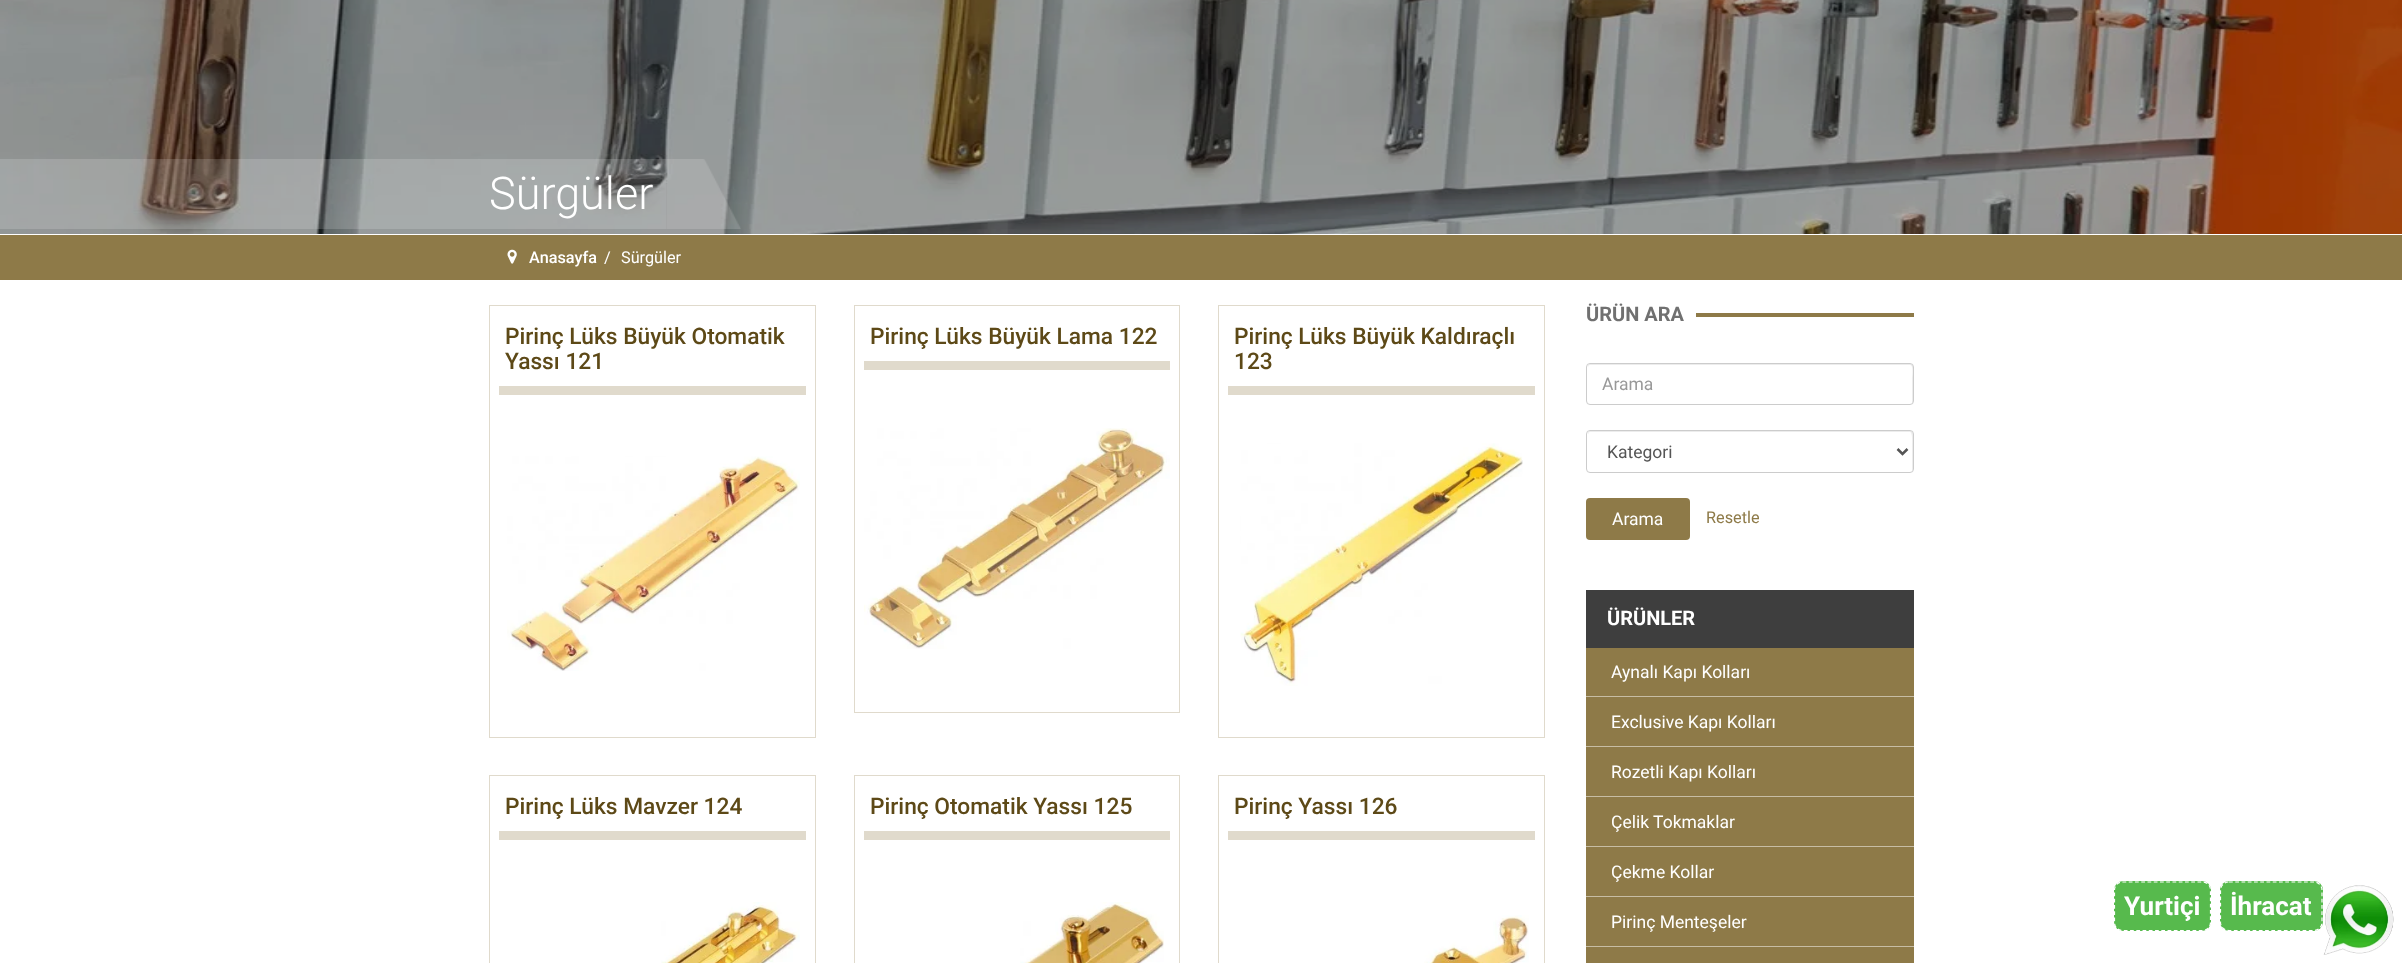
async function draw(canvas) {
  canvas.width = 2402
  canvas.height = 963
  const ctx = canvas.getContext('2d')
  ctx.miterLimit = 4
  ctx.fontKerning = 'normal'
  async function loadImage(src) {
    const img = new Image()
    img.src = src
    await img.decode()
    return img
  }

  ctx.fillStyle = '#fff'
  ctx.fillRect(0, 0, 2402, 963)
  ctx.drawImage(await loadImage('image0.png'), 0, 0, 2402, 234)
  ctx.fillStyle = '#ffffff29'
  ctx.fillRect(489, 159, 177, 70)
  ctx.fillRect(0, 159, 489, 70)
  ctx.font = '300 45px Roboto'
  ctx.fillStyle = '#fff'
  ctx.fillText('Sürgüler', 489, 209)
  ctx.drawImage(await loadImage('image1.png'), 666, 159, 75, 70)
  ctx.fillStyle = '#8e7a48'
  ctx.fillRect(0, 235, 2402, 45)
  ctx.drawImage(await loadImage('image2.png'), 507, 249, 10, 15)
  ctx.font = '500 16.25px Roboto'
  ctx.fillStyle = '#fff'
  ctx.fillText('Anasayfa', 529, 263)
  ctx.font = '16.25px Roboto'
  ctx.fillText('/', 604, 263)
  ctx.fillText('Sürgüler', 621, 263)
  ctx.strokeStyle = '#e0dacc'
  ctx.strokeRect(489.5, 305.5, 326, 432)
  ctx.fillStyle = '#e0dacc'
  ctx.fillRect(499, 386, 307, 9)
  ctx.font = '500 22.75px Roboto'
  ctx.fillStyle = '#5d4917'
  ctx.fillText('Pirinç Lüks Büyük Otomatik', 505, 344)
  ctx.fillText('Yassı 121', 505, 369)
  ctx.drawImage(await loadImage('image3.png'), 507, 456, 293, 215)
  ctx.strokeRect(854.5, 305.5, 325, 407)
  ctx.fillStyle = '#e0dacc'
  ctx.fillRect(864, 361, 306, 9)
  ctx.fillStyle = '#5d4917'
  ctx.fillText('Pirinç Lüks Büyük Lama 122', 870, 344)
  ctx.drawImage(await loadImage('image4.png'), 864, 428, 306, 221)
  ctx.strokeRect(1218.5, 305.5, 326, 432)
  ctx.fillStyle = '#e0dacc'
  ctx.fillRect(1228, 386, 307, 9)
  ctx.fillStyle = '#5d4917'
  ctx.fillText('Pirinç Lüks Büyük Kaldıraçlı', 1234, 344)
  ctx.fillText('123', 1234, 369)
  ctx.drawImage(await loadImage('image5.png'), 1240, 443, 283, 243)
  ctx.strokeRect(489.5, 775.5, 326, 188)
  ctx.fillStyle = '#e0dacc'
  ctx.fillRect(499, 831, 307, 9)
  ctx.fillStyle = '#5d4917'
  ctx.fillText('Pirinç Lüks Mavzer 124', 505, 814)
  ctx.drawImage(await loadImage('image6.png'), 661, 902, 139, 61)
  ctx.strokeRect(854.5, 775.5, 325, 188)
  ctx.fillStyle = '#e0dacc'
  ctx.fillRect(864, 831, 306, 9)
  ctx.fillStyle = '#5d4917'
  ctx.fillText('Pirinç Otomatik Yassı 125', 870, 814)
  ctx.drawImage(await loadImage('image7.png'), 1020, 902, 144, 61)
  ctx.strokeRect(1218.5, 775.5, 326, 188)
  ctx.fillStyle = '#e0dacc'
  ctx.fillRect(1228, 831, 307, 9)
  ctx.fillStyle = '#5d4917'
  ctx.fillText('Pirinç Yassı 126', 1234, 814)
  ctx.drawImage(await loadImage('image8.png'), 1424, 915, 105, 48)
  ctx.font = 'bold 20px Roboto'
  ctx.fillStyle = '#707070'
  ctx.fillText('ÜRÜN ARA', 1586, 321)
  ctx.fillStyle = '#8e7a48'
  ctx.fillRect(1696, 313, 218, 4)
  ctx.fillStyle = '#ececec'
  ctx.beginPath()
  ctx.moveTo(1590, 365)
  ctx.lineTo(1910, 365)
  ctx.bezierCurveTo(1914, 365, 1912, 378, 1912, 379)
  ctx.lineTo(1912, 404)
  ctx.lineTo(1913, 402)
  ctx.lineTo(1913, 366)
  ctx.bezierCurveTo(1913, 365, 1912, 364, 1910, 364)
  ctx.lineTo(1590, 364)
  ctx.bezierCurveTo(1589, 364, 1588, 365, 1588, 366)
  ctx.lineTo(1588, 368)
  ctx.bezierCurveTo(1588, 366, 1589, 365, 1590, 365)
  ctx.closePath()
  ctx.fill()
  ctx.beginPath()
  ctx.roundRect(1586.5, 363.5, 327, 41, 3.5)
  ctx.strokeStyle = '#ccc'
  ctx.stroke()
  ctx.font = '17.5px Roboto'
  ctx.fillStyle = '#999'
  ctx.fillText('Arama', 1602, 390)
  ctx.fillStyle = '#ececec'
  ctx.beginPath()
  ctx.moveTo(1590, 432)
  ctx.lineTo(1910, 432)
  ctx.bezierCurveTo(1913, 432, 1912, 446, 1912, 447)
  ctx.lineTo(1912, 471)
  ctx.bezierCurveTo(1913, 470, 1913, 469, 1913, 468)
  ctx.lineTo(1913, 434)
  ctx.bezierCurveTo(1913, 432, 1912, 431, 1910, 431)
  ctx.lineTo(1590, 431)
  ctx.bezierCurveTo(1589, 431, 1588, 432, 1588, 434)
  ctx.lineTo(1588, 435)
  ctx.bezierCurveTo(1588, 434, 1589, 432, 1590, 432)
  ctx.closePath()
  ctx.fill()
  ctx.beginPath()
  ctx.roundRect(1586.5, 430.5, 327, 42, 3.5)
  ctx.stroke()
  ctx.beginPath()
  ctx.moveTo(1897.5, 449)
  ctx.lineTo(1902.5, 454)
  ctx.lineTo(1907.5, 449)
  ctx.strokeStyle = '#555'
  ctx.lineWidth = 2.5
  ctx.stroke()
  ctx.fillStyle = '#555'
  ctx.fillText('Kategori', 1607, 458)
  ctx.fillStyle = '#8e7a48'
  ctx.beginPath()
  ctx.roundRect(1586, 498, 104, 42, 4)
  ctx.fill()
  ctx.fillStyle = '#fff'
  ctx.fillText('Arama', 1612, 525)
  ctx.font = '16.25px Roboto'
  ctx.fillStyle = '#8e7a48'
  ctx.fillText('Resetle', 1706, 523)
  ctx.fillRect(1586, 648, 328, 315)
  ctx.fillStyle = '#3e3e3e'
  ctx.fillRect(1586, 590, 328, 58)
  ctx.font = 'bold 20px Roboto'
  ctx.fillStyle = '#fff'
  ctx.fillText('ÜRÜNLER', 1607, 625)
  ctx.font = '17.5px Roboto'
  ctx.fillText('Aynalı Kapı Kolları', 1611, 678)
  ctx.fillStyle = '#c7bda4'
  ctx.fillRect(1586, 696, 328, 1)
  ctx.fillStyle = '#fff'
  ctx.fillText('Exclusive Kapı Kolları', 1611, 728)
  ctx.fillStyle = '#c7bda4'
  ctx.fillRect(1586, 746, 328, 1)
  ctx.fillStyle = '#fff'
  ctx.fillText('Rozetli Kapı Kolları', 1611, 778)
  ctx.fillStyle = '#c7bda4'
  ctx.fillRect(1586, 796, 328, 1)
  ctx.fillStyle = '#fff'
  ctx.fillText('Çelik Tokmaklar', 1611, 828)
  ctx.fillStyle = '#c7bda4'
  ctx.fillRect(1586, 846, 328, 1)
  ctx.fillStyle = '#fff'
  ctx.fillText('Çekme Kollar', 1611, 878)
  ctx.fillStyle = '#c7bda4'
  ctx.fillRect(1586, 896, 328, 1)
  ctx.fillStyle = '#fff'
  ctx.fillText('Pirinç Menteşeler', 1611, 928)
  ctx.fillStyle = '#c7bda4'
  ctx.fillRect(1586, 946, 328, 1)
  ctx.fillStyle = '#57ba4d'
  ctx.beginPath()
  ctx.roundRect(2114, 881, 97, 50, 9)
  ctx.fill()
  ctx.beginPath()
  ctx.moveTo(2122.5, 882)
  ctx.lineTo(2202.5, 882)
  ctx.bezierCurveTo(2207, 882, 2210.5, 885.5, 2210.5, 890)
  ctx.lineTo(2210.5, 922.5)
  ctx.bezierCurveTo(2210.5, 927, 2207, 930.5, 2202.5, 930.5)
  ctx.lineTo(2122.5, 930.5)
  ctx.bezierCurveTo(2118, 930.5, 2114.5, 927, 2114.5, 922.5)
  ctx.lineTo(2114.5, 890)
  ctx.bezierCurveTo(2114.5, 885.5, 2118, 882, 2122.5, 882)
  ctx.closePath()
  ctx.strokeStyle = '#fff'
  ctx.lineWidth = 1.2
  ctx.setLineDash([3.75, 2.5])
  ctx.stroke()
  ctx.font = 'bold 26px Roboto'
  ctx.fillStyle = '#fff'
  ctx.fillText('Yurtiçi', 2124, 915)
  ctx.fillStyle = '#57ba4d'
  ctx.beginPath()
  ctx.roundRect(2220, 881, 103, 50, 9)
  ctx.fill()
  ctx.beginPath()
  ctx.moveTo(2229, 882)
  ctx.lineTo(2314, 882)
  ctx.bezierCurveTo(2318, 882, 2322, 885.5, 2322, 890)
  ctx.lineTo(2322, 922.5)
  ctx.bezierCurveTo(2322, 927, 2318, 930.5, 2314, 930.5)
  ctx.lineTo(2229, 930.5)
  ctx.bezierCurveTo(2224.5, 930.5, 2220.5, 927, 2220.5, 922.5)
  ctx.lineTo(2220.5, 890)
  ctx.bezierCurveTo(2220.5, 885.5, 2224.5, 882, 2229, 882)
  ctx.closePath()
  ctx.stroke()
  ctx.fillStyle = '#fff'
  ctx.fillText('İhracat', 2230, 915)
  ctx.drawImage(await loadImage('image9.png'), 2323, 885, 71, 70)
}

draw(document.querySelector('canvas'))
